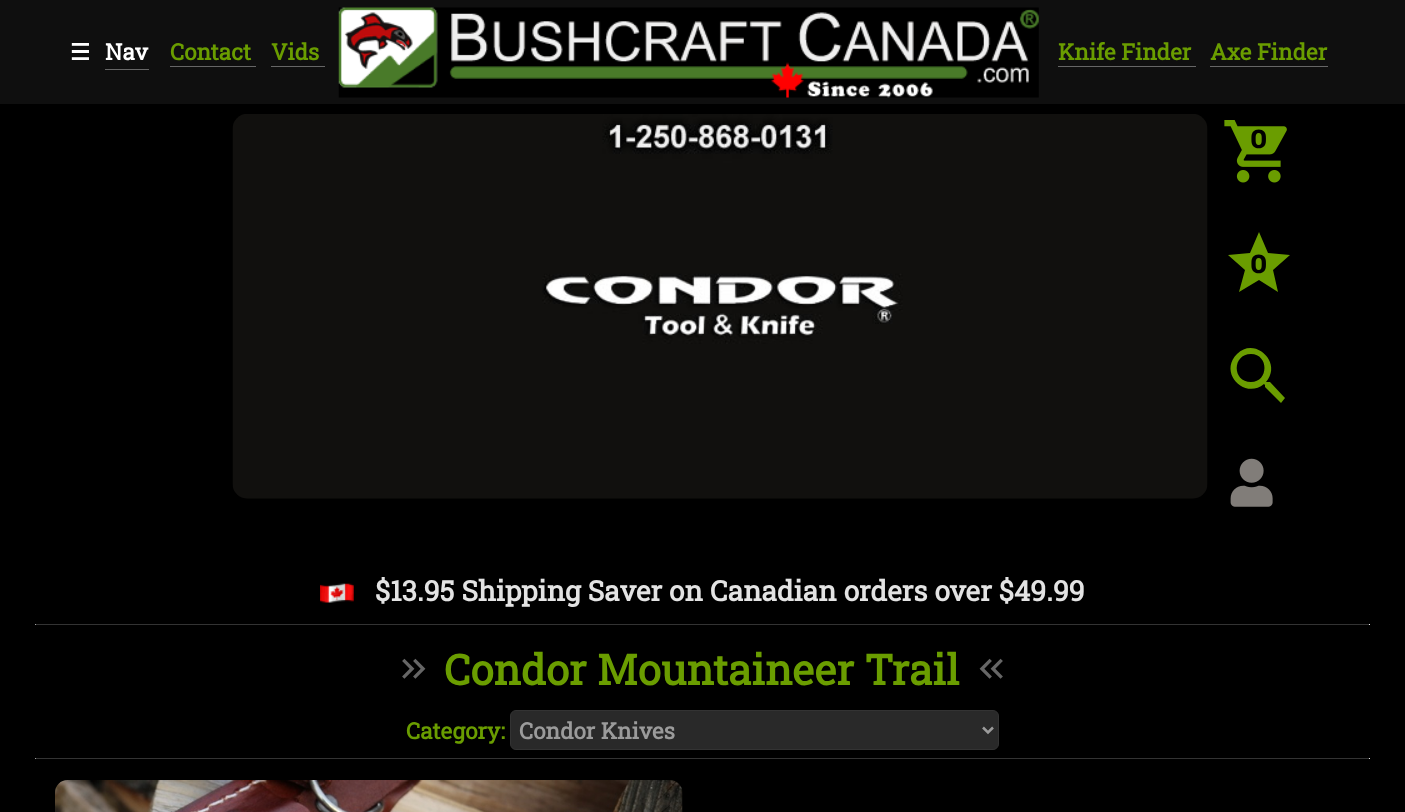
async function draw(canvas) {
  canvas.width = 1405
  canvas.height = 812
  const ctx = canvas.getContext('2d')
  ctx.miterLimit = 4
  ctx.fontKerning = 'normal'
  async function loadImage(src) {
    const img = new Image()
    img.src = src
    await img.decode()
    return img
  }

  ctx.fillStyle = '#000'
  ctx.fillRect(0, 0, 1405, 812)
  ctx.fillStyle = '#0f0f0f'
  ctx.fillRect(0, 0, 1405, 104)
  ctx.font = 'bold 22.5px DejaVu Sans'
  ctx.fillStyle = '#fff'
  ctx.fillText('☰', 70, 60)
  ctx.fillStyle = '#666'
  ctx.fillRect(105, 69, 44, 1)
  ctx.font = 'bold 22.5px Roboto Slab'
  ctx.fillStyle = '#fff'
  ctx.fillText('Nav', 105, 60)
  ctx.fillStyle = '#6a9d00'
  ctx.fillText('Contact', 170, 60)
  ctx.fillStyle = '#666'
  ctx.fillRect(170, 66, 86, 1)
  ctx.fillStyle = '#6a9d00'
  ctx.fillText('Vids', 271, 60)
  ctx.fillStyle = '#666'
  ctx.fillRect(271, 66, 54, 1)
  ctx.drawImage(await loadImage('image0.png'), 338, 7, 701, 91)
  ctx.fillStyle = '#6a9d00'
  ctx.fillText('Knife Finder', 1058, 60)
  ctx.fillStyle = '#666'
  ctx.fillRect(1058, 66, 138, 1)
  ctx.fillStyle = '#6a9d00'
  ctx.fillText('Axe Finder', 1210, 60)
  ctx.fillStyle = '#666'
  ctx.fillRect(1210, 66, 118, 1)
  ctx.drawImage(await loadImage('image1.png'), 232, 114, 976, 385)
  ctx.drawImage(await loadImage('image2.png'), 1224, 120, 63, 63)
  ctx.font = '600 26px Rubik'
  ctx.fillStyle = '#000'
  ctx.fillText('0', 1250, 148)
  ctx.fillStyle = '#6a9d00'
  ctx.beginPath()
  ctx.moveTo(1259, 280)
  ctx.lineTo(1278, 292)
  ctx.lineTo(1273, 270)
  ctx.lineTo(1290, 255)
  ctx.lineTo(1268, 253)
  ctx.lineTo(1259, 232)
  ctx.lineTo(1250, 253)
  ctx.lineTo(1228, 255)
  ctx.lineTo(1245, 270)
  ctx.lineTo(1239, 292)
  ctx.closePath()
  ctx.fill()
  ctx.fillStyle = '#000'
  ctx.fillText('0', 1250, 273)
  ctx.fillStyle = '#6a9d00'
  ctx.beginPath()
  ctx.moveTo(1270, 382)
  ctx.lineTo(1267, 382)
  ctx.lineTo(1266, 382)
  ctx.bezierCurveTo(1283, 363, 1255, 336, 1237, 354)
  ctx.bezierCurveTo(1218, 373, 1245, 400, 1264, 384)
  ctx.lineTo(1265, 385)
  ctx.lineTo(1265, 387)
  ctx.lineTo(1281, 403)
  ctx.lineTo(1285, 398)
  ctx.closePath()
  ctx.moveTo(1251, 382)
  ctx.bezierCurveTo(1232, 382, 1232, 354, 1251, 354)
  ctx.bezierCurveTo(1269, 354, 1269, 382, 1251, 382)
  ctx.closePath()
  ctx.fill()
  ctx.drawImage(await loadImage('image3.png'), 1230, 458, 43, 49)
  ctx.drawImage(await loadImage('image4.png'), 320, 583, 34, 20)
  ctx.font = 'bold 28.1px Roboto Slab'
  ctx.fillStyle = '#e3e3e3'
  ctx.fillText('$13.95 Shipping Saver on Canadian orders over $49.99', 375, 601)
  ctx.fillStyle = '#333'
  ctx.fillRect(35, 624, 1335, 1)
  ctx.fillStyle = '#eee'
  ctx.fillRect(1369, 624, 1, 1)
  ctx.fillStyle = '#9f9f9f'
  ctx.fillRect(35, 624, 1, 1)
  ctx.drawImage(await loadImage('image5.png'), 402, 658, 24, 21)
  ctx.font = 'bold 42.1px Roboto Slab'
  ctx.fillStyle = '#6a9d00'
  ctx.fillText('Condor Mountaineer Trail', 444, 685)
  ctx.drawImage(await loadImage('image6.png'), 979, 658, 24, 21)
  ctx.font = 'bold 22.5px Roboto Slab'
  ctx.fillText('Category:', 406, 739)
  ctx.fillStyle = '#292929'
  ctx.beginPath()
  ctx.roundRect(510.5, 710.5, 488, 39, 5.5)
  ctx.fill()
  ctx.strokeStyle = '#333'
  ctx.stroke()
  ctx.beginPath()
  ctx.moveTo(983, 727.5)
  ctx.lineTo(988, 732.5)
  ctx.lineTo(993, 727.5)
  ctx.strokeStyle = '#9b9b9b'
  ctx.lineWidth = 2.5
  ctx.stroke()
  ctx.fillStyle = '#9b9b9b'
  ctx.fillText('Condor Knives', 519, 739)
  ctx.fillStyle = '#333'
  ctx.fillRect(35, 758, 1335, 1)
  ctx.fillStyle = '#eee'
  ctx.fillRect(1369, 758, 1, 1)
  ctx.fillStyle = '#9f9f9f'
  ctx.fillRect(35, 758, 1, 1)
  ctx.drawImage(await loadImage('image7.png'), 55, 780, 628, 32)
}

draw(document.querySelector('canvas'))
